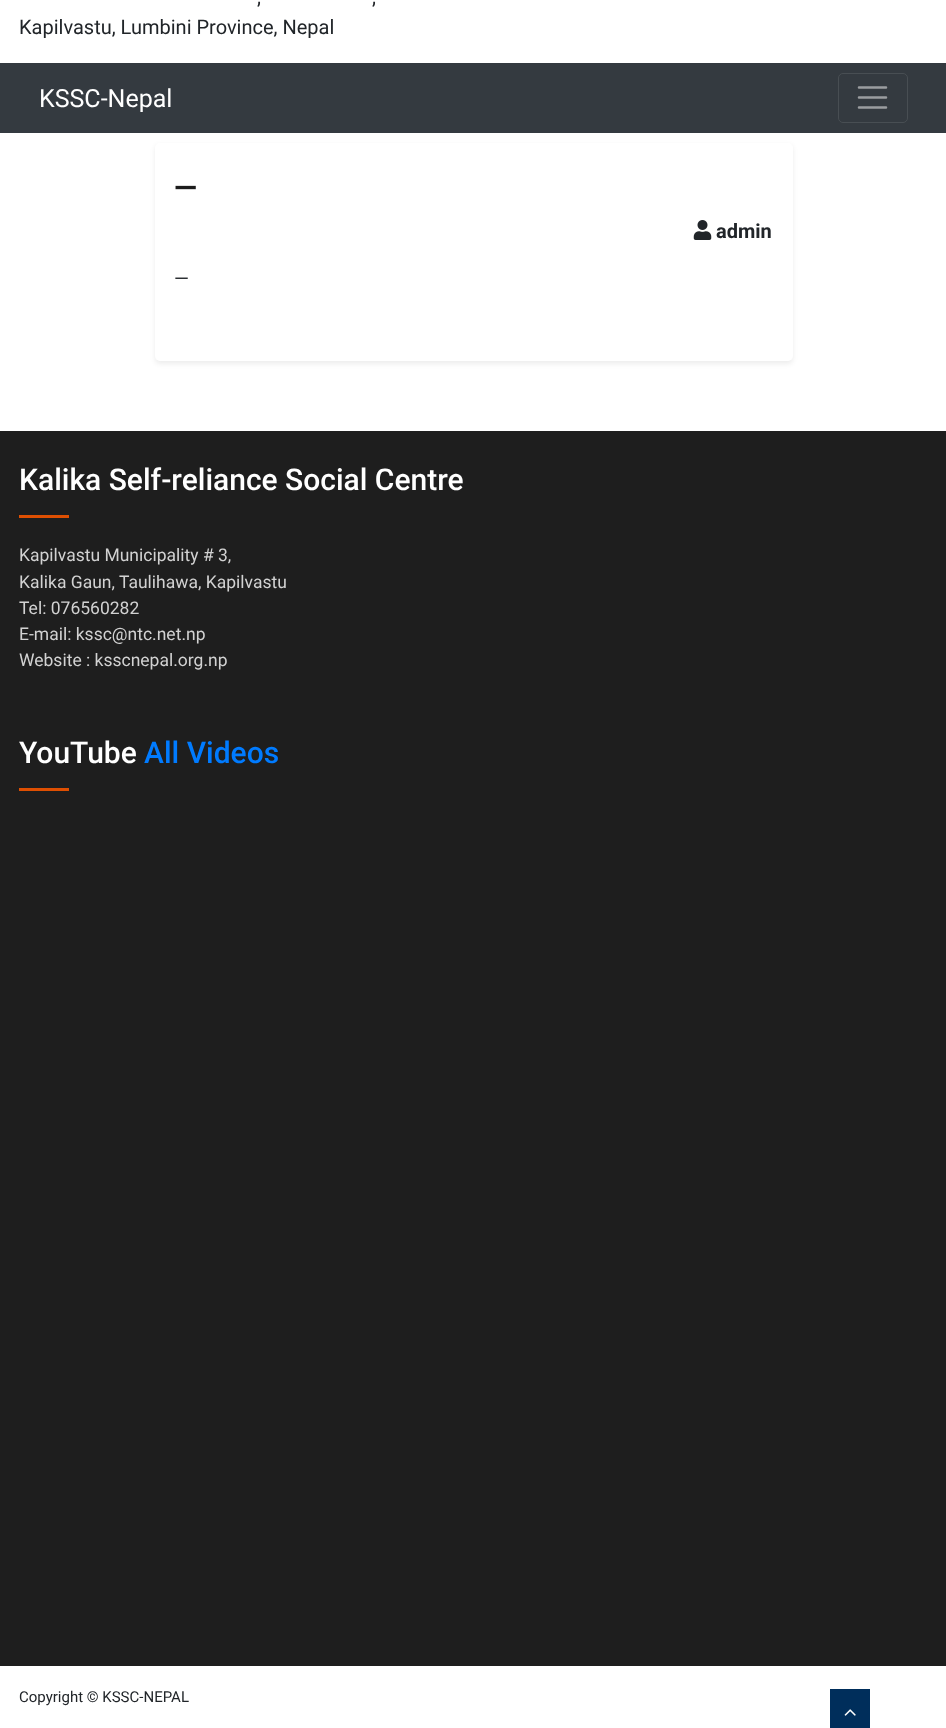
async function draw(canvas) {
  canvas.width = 946
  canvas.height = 1728
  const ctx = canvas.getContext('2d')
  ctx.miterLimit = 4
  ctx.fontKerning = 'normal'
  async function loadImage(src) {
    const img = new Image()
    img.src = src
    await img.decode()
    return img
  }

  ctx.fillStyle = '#fff'
  ctx.fillRect(0, 0, 946, 1728)
  ctx.font = '20px Roboto'
  ctx.fillStyle = '#212529'
  ctx.fillText(',', 257, 4)
  ctx.fillText(',', 372, 4)
  ctx.fillText('Kapilvastu, Lumbini Province, Nepal', 19, 34)
  ctx.fillStyle = '#343a40'
  ctx.fillRect(0, 63, 946, 70)
  ctx.font = '25px Roboto'
  ctx.fillStyle = '#fff'
  ctx.fillText('KSSC-Nepal', 39, 107)
  ctx.beginPath()
  ctx.roundRect(838.5, 73.5, 69, 49, 4.5)
  ctx.strokeStyle = '#484e53'
  ctx.stroke()
  ctx.beginPath()
  ctx.moveTo(859, 87.5)
  ctx.lineTo(886, 87.5)
  ctx.moveTo(859, 97.5)
  ctx.lineTo(886, 97.5)
  ctx.moveTo(859, 107.5)
  ctx.lineTo(886, 107.5)
  ctx.strokeStyle = '#9a9da0'
  ctx.lineWidth = 2.5
  ctx.lineCap = 'round'
  ctx.stroke()
  ctx.fillStyle = '#00000012'
  ctx.filter = 'blur(2.5px)'
  ctx.beginPath()
  ctx.roundRect(155, 145, 638, 219, 5)
  ctx.fill()
  ctx.filter = 'none'
  ctx.fillStyle = '#fff'
  ctx.beginPath()
  ctx.roundRect(155, 143, 638, 218, 5)
  ctx.fill()
  ctx.font = 'bold 30px Roboto'
  ctx.fillStyle = '#1c1c1c'
  ctx.fillText('—', 174, 198)
  ctx.drawImage(await loadImage('image0.png'), 693, 220, 19, 20)
  ctx.font = 'bold 20px Roboto'
  ctx.fillStyle = '#212529'
  ctx.fillText('admin', 716, 238)
  ctx.font = '19px Roboto'
  ctx.fillText('—', 174, 285)
  ctx.fillStyle = '#1e1e1e'
  ctx.fillRect(0, 431, 946, 1235)
  ctx.font = '500 30px Roboto'
  ctx.fillStyle = '#fff'
  ctx.fillText('Kalika Self-reliance Social Centre', 19, 490)
  ctx.fillStyle = '#de4f02'
  ctx.fillRect(19, 515, 50, 3)
  ctx.font = '17.5px Roboto'
  ctx.fillStyle = '#d2d2d2'
  ctx.fillText('Kapilvastu Municipality # 3,', 19, 561)
  ctx.fillText('Kalika Gaun, Taulihawa, Kapilvastu', 19, 588)
  ctx.fillText('Tel: 076560282', 19, 614)
  ctx.fillText('E-mail: kssc@ntc.net.np', 19, 640)
  ctx.fillText('Website : ksscnepal.org.np', 19, 666)
  ctx.font = '500 30px Roboto'
  ctx.fillStyle = '#fff'
  ctx.fillText('YouTube', 19, 763)
  ctx.fillStyle = '#007bff'
  ctx.fillText('All Videos', 144, 763)
  ctx.fillStyle = '#de4f02'
  ctx.fillRect(19, 788, 50, 3)
  ctx.font = '15px Roboto'
  ctx.fillStyle = '#212529'
  ctx.fillText('Copyright © KSSC-NEPAL', 19, 1702)
  ctx.fillStyle = '#002e5b'
  ctx.fillRect(830, 1689, 40, 39)
  ctx.drawImage(await loadImage('image1.png'), 844, 1709, 12, 7)
}

draw(document.querySelector('canvas'))
